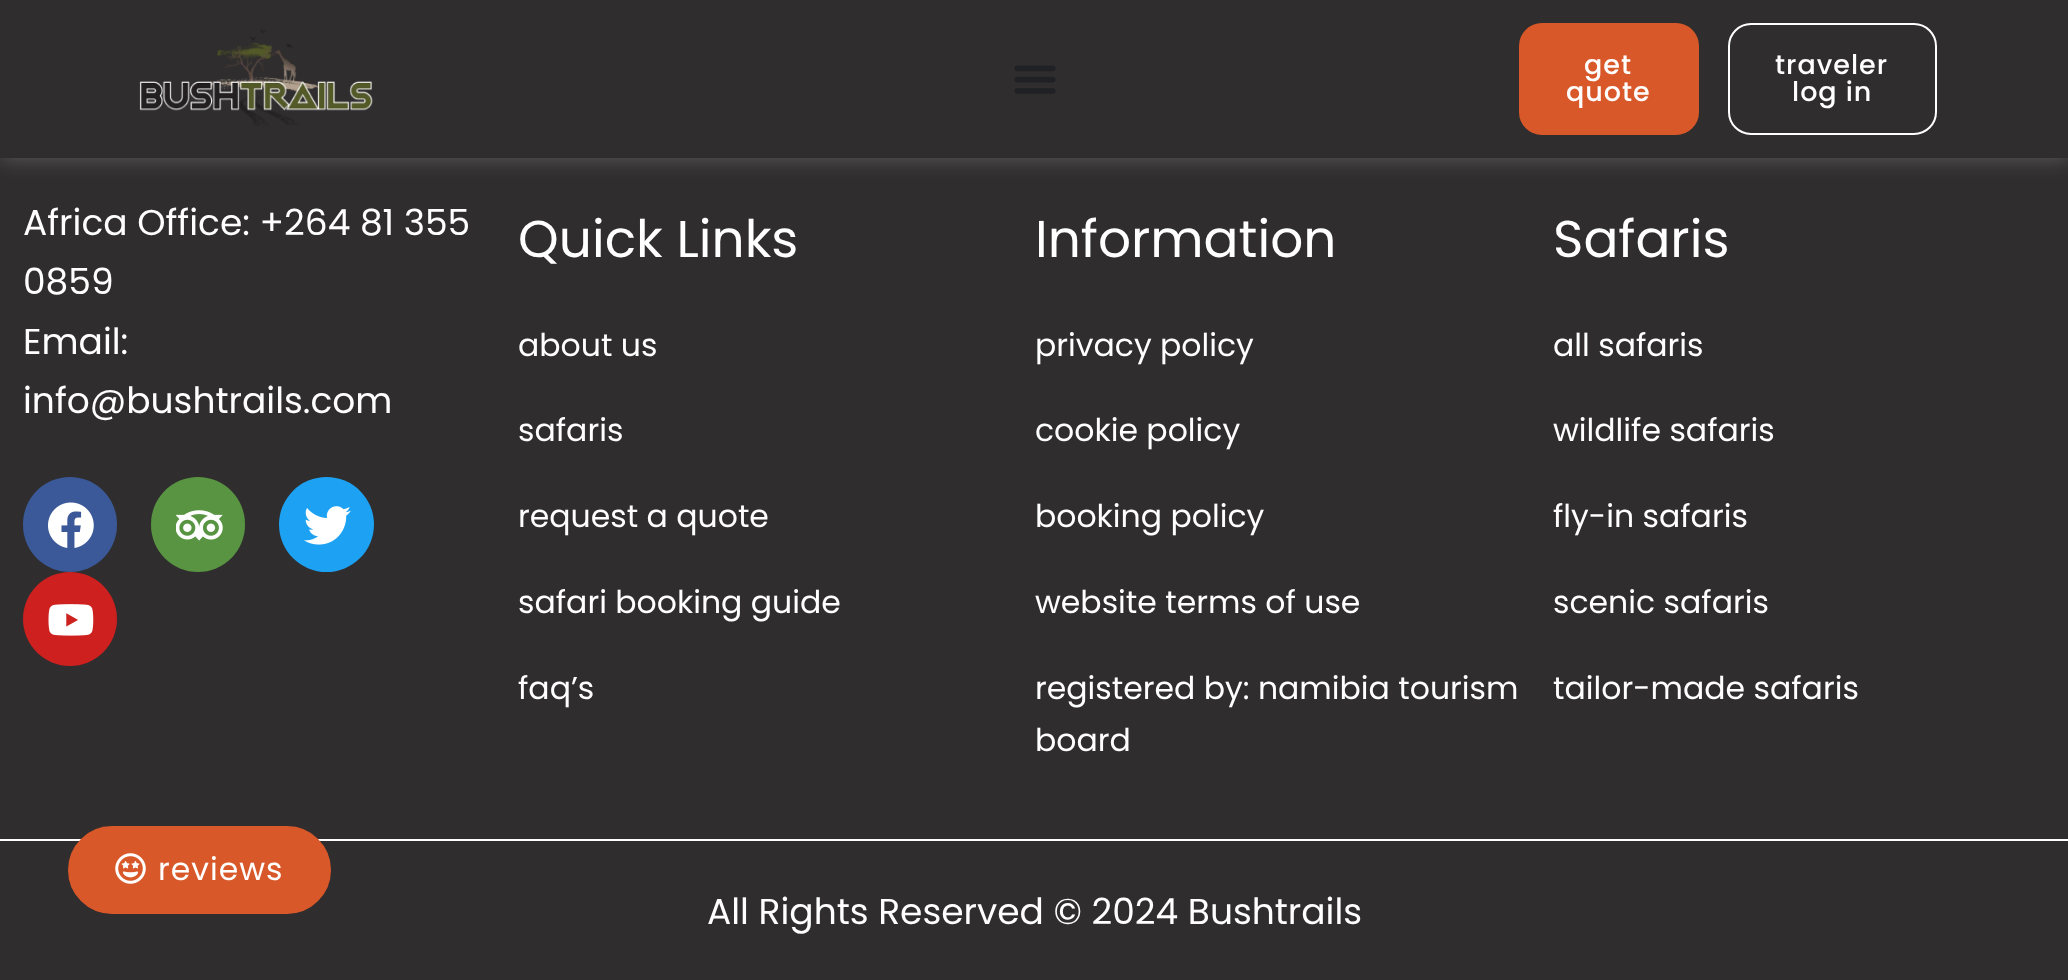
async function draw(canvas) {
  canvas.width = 2068
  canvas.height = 980
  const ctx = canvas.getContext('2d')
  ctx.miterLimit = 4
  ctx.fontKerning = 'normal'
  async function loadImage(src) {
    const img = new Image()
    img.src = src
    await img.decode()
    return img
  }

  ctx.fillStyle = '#2f2d2e'
  ctx.fillRect(0, 0, 2068, 980)
  ctx.fillStyle = '#ffffff3b'
  ctx.filter = 'blur(11px)'
  ctx.beginPath()
  ctx.rect(0, 0, 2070, 158)
  ctx.fill()
  ctx.filter = 'none'
  ctx.fillStyle = '#2f2d2e'
  ctx.fillRect(0, 0, 2068, 158)
  ctx.drawImage(await loadImage('image0.png'), 139, 29, 234, 97)
  ctx.drawImage(await loadImage('image1.png'), 1014, 65, 42, 29)
  ctx.fillStyle = '#d95829'
  ctx.beginPath()
  ctx.roundRect(1520, 24, 178, 110, 22)
  ctx.fill()
  ctx.strokeStyle = '#d95829'
  ctx.lineWidth = 2
  ctx.stroke()
  ctx.letterSpacing = '1px'
  ctx.font = '500 27px Poppins'
  ctx.fillStyle = '#fff'
  ctx.fillText('get', 1584, 74)
  ctx.fillText('quote', 1566, 101)
  ctx.beginPath()
  ctx.roundRect(1729, 24, 207, 110, 22)
  ctx.strokeStyle = '#fff'
  ctx.stroke()
  ctx.fillText('traveler', 1775, 74)
  ctx.fillText('log in', 1792, 101)
  ctx.letterSpacing = '0px'
  ctx.font = '36px Poppins'
  ctx.fillText('Africa Office: +264 81 355', 23, 235)
  ctx.fillText('0859', 23, 294)
  ctx.fillText('Email:', 23, 354)
  ctx.fillText('info@bushtrails.com', 23, 413)
  ctx.fillStyle = '#3b5998'
  ctx.beginPath()
  ctx.roundRect(23, 477, 94, 95, 47)
  ctx.fill()
  ctx.drawImage(await loadImage('image2.png'), 48, 502, 46, 46)
  ctx.fillStyle = '#589442'
  ctx.beginPath()
  ctx.roundRect(151, 477, 94, 95, 47)
  ctx.fill()
  ctx.drawImage(await loadImage('image3.png'), 176, 510, 47, 31)
  ctx.fillStyle = '#1da1f2'
  ctx.beginPath()
  ctx.arc(326.5, 524.5, 47.5, 0, 2 * Math.PI)
  ctx.fill()
  ctx.drawImage(await loadImage('image4.png'), 304, 506, 47, 39)
  ctx.fillStyle = '#cd201f'
  ctx.beginPath()
  ctx.arc(70, 619, 47, 0, 2 * Math.PI)
  ctx.fill()
  ctx.drawImage(await loadImage('image5.png'), 48, 604, 46, 32)
  ctx.fillStyle = '#fff'
  ctx.fillRect(0, 839, 2068, 2)
  ctx.fillStyle = '#d95829'
  ctx.beginPath()
  ctx.roundRect(69, 827, 261, 86, 43)
  ctx.fill()
  ctx.strokeStyle = '#d95829'
  ctx.stroke()
  ctx.drawImage(await loadImage('image6.png'), 115, 853, 31, 31)
  ctx.letterSpacing = '1px'
  ctx.font = '31.5px Poppins'
  ctx.fillStyle = '#fff'
  ctx.fillText('reviews', 158, 880)
  ctx.letterSpacing = '0px'
  ctx.font = '51.75px Poppins'
  ctx.fillText('Quick Links', 518, 257)
  ctx.font = '31.5px Poppins'
  ctx.fillText('about us', 518, 356)
  ctx.fillText('safaris', 518, 441)
  ctx.fillText('request a quote', 518, 527)
  ctx.fillText('safari booking guide', 518, 613)
  ctx.fillText('faq’s', 518, 699)
  ctx.font = '51.75px Poppins'
  ctx.fillText('Information', 1035, 257)
  ctx.font = '31.5px Poppins'
  ctx.fillText('privacy policy', 1035, 356)
  ctx.fillText('cookie policy', 1035, 441)
  ctx.fillText('booking policy', 1035, 527)
  ctx.fillText('website terms of use', 1035, 613)
  ctx.fillText('registered by: namibia tourism', 1035, 699)
  ctx.fillText('board', 1035, 751)
  ctx.font = '51.75px Poppins'
  ctx.fillText('Safaris', 1553, 257)
  ctx.font = '31.5px Poppins'
  ctx.fillText('all safaris', 1553, 356)
  ctx.fillText('wildlife safaris', 1553, 441)
  ctx.fillText('fly-in safaris', 1553, 527)
  ctx.fillText('scenic safaris', 1553, 613)
  ctx.fillText('tailor-made safaris', 1553, 699)
  ctx.font = '36px Poppins'
  ctx.fillText('All Rights Reserved © 2024 Bushtrails', 707, 924)
}

draw(document.querySelector('canvas'))
